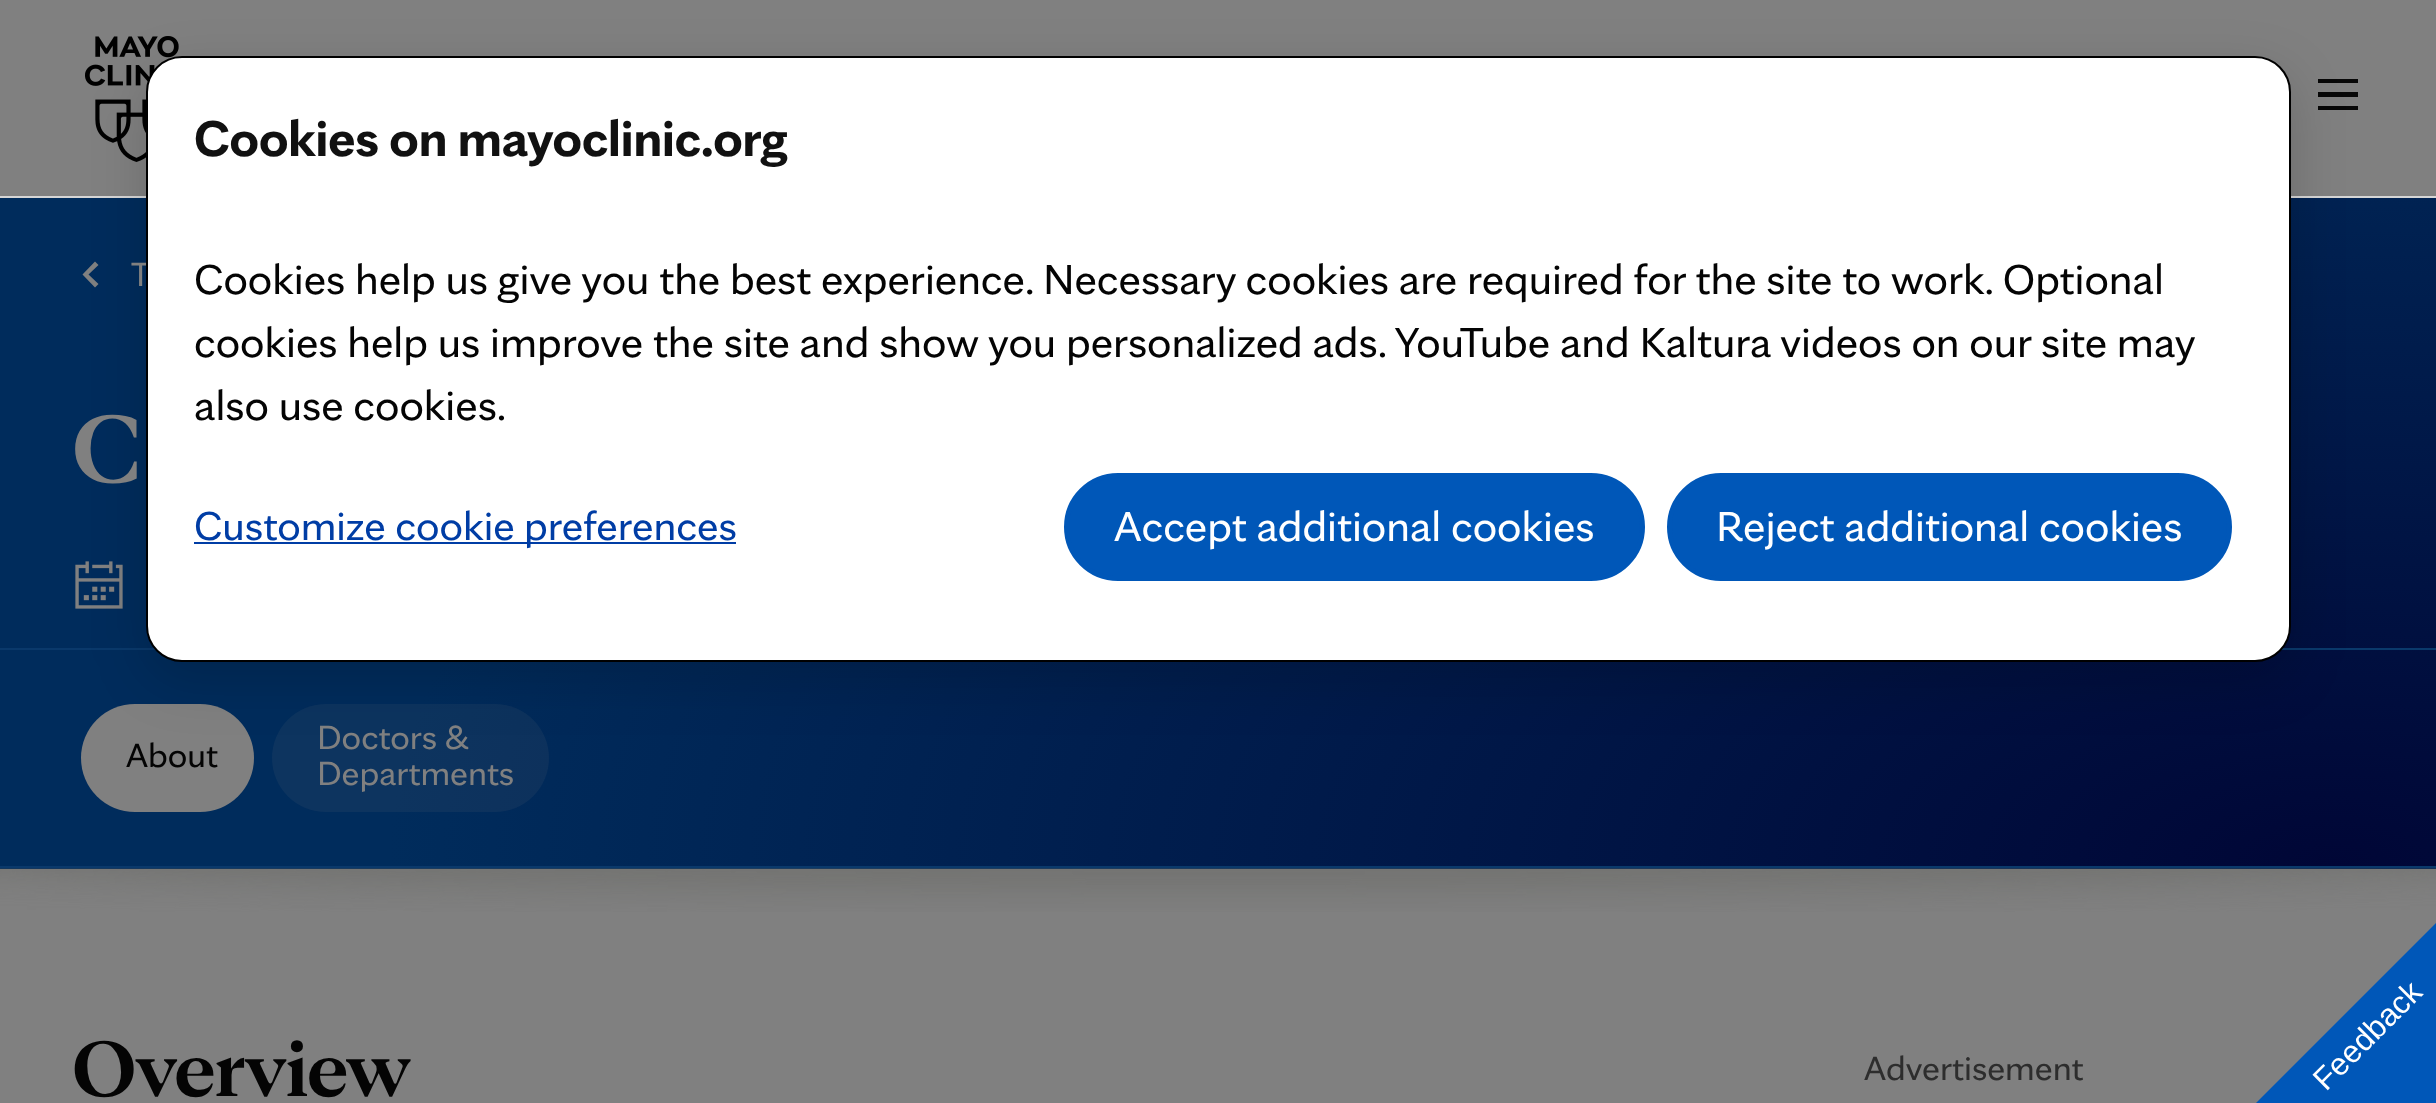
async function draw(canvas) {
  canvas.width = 2436
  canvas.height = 1103
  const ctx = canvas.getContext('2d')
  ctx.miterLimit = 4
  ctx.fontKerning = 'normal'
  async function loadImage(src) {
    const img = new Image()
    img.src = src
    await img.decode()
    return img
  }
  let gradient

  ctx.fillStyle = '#808080'
  ctx.fillRect(0, 0, 2436, 1103)
  ctx.fillStyle = '#d6d6d6'
  ctx.fillRect(0, 196, 2436, 2)
  ctx.drawImage(await loadImage('image0.png'), 85, 36, 94, 126)
  ctx.fillStyle = '#080808'
  ctx.fillRect(2318, 79, 40, 4)
  ctx.fillRect(2318, 92, 40, 5)
  ctx.fillRect(2318, 106, 40, 4)
  gradient = ctx.createRadialGradient(2332, 1875.85, 0, 2332, 1875.85, 1943)
  gradient.addColorStop(0, '#000636')
  gradient.addColorStop(1, '#002c5c')
  ctx.fillStyle = gradient
  ctx.beginPath()
  ctx.rect(0, 198, 2436, 668)
  ctx.save()
  ctx.clip()
  ctx.scale(1, 897 / 1943)
  ctx.fillRect(0, 0, 2436, 2390)
  ctx.restore()
  ctx.fillStyle = '#808080'
  ctx.beginPath()
  ctx.moveTo(95, 287.5)
  ctx.lineTo(82.5, 274.5)
  ctx.lineTo(95, 261.5)
  ctx.lineTo(98.5, 265)
  ctx.lineTo(88.5, 274.5)
  ctx.lineTo(98.5, 284)
  ctx.closePath()
  ctx.fill()
  ctx.drawImage(await loadImage('image1.png'), 75, 561, 48, 48)
  ctx.fillStyle = '#0a396b'
  ctx.fillRect(0, 648, 2436, 2)
  ctx.fillStyle = '#808080'
  ctx.beginPath()
  ctx.roundRect(81, 704, 173, 108, 54)
  ctx.fill()
  ctx.fillStyle = '#8080801a'
  ctx.beginPath()
  ctx.roundRect(272, 704, 277, 108, 54)
  ctx.fill()
  ctx.fillStyle = '#00000029'
  ctx.filter = 'blur(27px)'
  ctx.beginPath()
  ctx.roundRect(146, 74, 2145, 606, 36)
  ctx.fill()
  ctx.filter = 'none'
  ctx.font = '36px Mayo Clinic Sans'
  ctx.fillStyle = '#808080'
  ctx.fillText('T', 131, 286)
  ctx.fillStyle = '#fff'
  ctx.beginPath()
  ctx.roundRect(147, 57, 2143, 604, 35)
  ctx.fill()
  ctx.strokeStyle = '#000'
  ctx.lineWidth = 2
  ctx.stroke()
  ctx.font = 'bold 54px Mayo Clinic Sans'
  ctx.fillStyle = '#111'
  ctx.fillText('Cookies on mayoclinic.org', 194, 156)
  ctx.font = '45px Mayo Clinic Sans'
  ctx.fillStyle = '#040404'
  ctx.fillText('Cookies help us give you the best experience. Necessary cookies are required for the site to work. Optional', 194, 294)
  ctx.fillText('cookies help us improve the site and show you personalized ads. YouTube and Kaltura videos on our site may', 194, 357)
  ctx.fillText('also use cookies.', 194, 420)
  ctx.fillStyle = '#003da5'
  ctx.fillRect(194, 542, 542, 2)
  ctx.font = '43.25px Mayo Clinic Sans'
  ctx.fillText('Customize cookie preferences', 194, 540)
  ctx.fillStyle = '#0057b8'
  ctx.beginPath()
  ctx.roundRect(1066.5, 475.5, 576, 103, 51.5)
  ctx.fill()
  ctx.strokeStyle = '#0057b8'
  ctx.lineWidth = 5
  ctx.stroke()
  ctx.font = '45px Mayo Clinic Sans'
  ctx.fillStyle = '#fff'
  ctx.fillText('Accept additional cookies', 1114, 541)
  ctx.fillStyle = '#0057b8'
  ctx.beginPath()
  ctx.roundRect(1669.5, 475.5, 560, 103, 51.5)
  ctx.fill()
  ctx.stroke()
  ctx.fillStyle = '#fff'
  ctx.fillText('Reject additional cookies', 1716, 541)
  gradient = ctx.createRadialGradient(2332, 3324.98, 0, 2332, 3324.98, 1943)
  gradient.addColorStop(0, '#000636')
  gradient.addColorStop(1, '#002c5c')
  ctx.fillStyle = gradient
  ctx.beginPath()
  ctx.rect(0, 868, 2436, 1)
  ctx.save()
  ctx.clip()
  ctx.scale(1, 897 / 1943)
  ctx.fillRect(0, 0, 2436, 2390)
  ctx.restore()
  ctx.fillStyle = '#0a396b'
  ctx.fillRect(0, 866, 2436, 2)
  ctx.font = 'bold 102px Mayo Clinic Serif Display'
  ctx.fillStyle = '#808080'
  ctx.fillText('C', 72, 482)
  ctx.font = '36px Mayo Clinic Sans'
  ctx.fillStyle = '#040404'
  ctx.fillText('About', 126, 767)
  ctx.fillStyle = '#808080'
  ctx.fillText('Doctors &', 317, 749)
  ctx.fillText('Departments', 317, 785)
  ctx.drawImage(await loadImage('image2.png'), 0, 868, 2436, 44)
  ctx.font = 'bold 84px Mayo Clinic Serif Display'
  ctx.fillStyle = '#040404'
  ctx.fillText('Overview', 72, 1096)
  ctx.font = '36px Mayo Clinic Sans'
  ctx.fillStyle = '#2d2d2d'
  ctx.fillText('Advertisement', 1864, 1080)
  ctx.fillStyle = '#0057b8'
  ctx.beginPath()
  ctx.moveTo(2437, 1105)
  ctx.lineTo(2254, 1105)
  ctx.lineTo(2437, 922)
  ctx.closePath()
  ctx.fill()
  ctx.font = '31.5px Liberation Sans'
  ctx.fillStyle = '#fff'
  ctx.save()
  ctx.translate(2326, 1092)
  ctx.rotate(-45 * Math.PI / 180)
  ctx.fillText('Feedback', 0, 0)
  ctx.restore()
}

draw(document.querySelector('canvas'))
